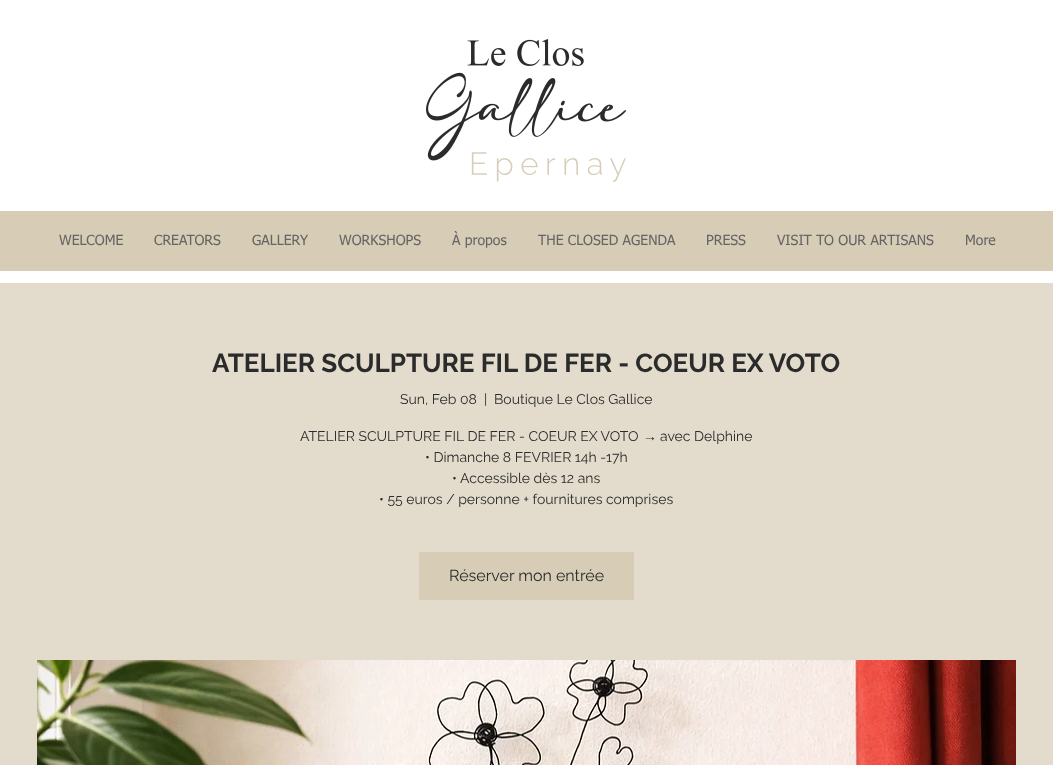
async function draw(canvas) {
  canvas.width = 1053
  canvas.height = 765
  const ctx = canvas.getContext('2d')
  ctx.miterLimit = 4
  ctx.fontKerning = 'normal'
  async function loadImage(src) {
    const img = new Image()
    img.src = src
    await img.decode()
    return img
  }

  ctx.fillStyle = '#fff'
  ctx.fillRect(0, 0, 1053, 765)
  ctx.drawImage(await loadImage('image0.png'), 426, 39, 200, 143)
  ctx.fillStyle = '#d7cdb6'
  ctx.fillRect(0, 211, 1053, 60)
  ctx.font = '14px tahoma'
  ctx.fillStyle = '#666565'
  ctx.fillText('WELCOME', 59, 245)
  ctx.fillText('CREATORS', 154, 245)
  ctx.fillText('GALLERY', 252, 245)
  ctx.fillText('WORKSHOPS', 339, 245)
  ctx.fillText('À propos', 452, 245)
  ctx.fillText('THE CLOSED AGENDA', 538, 245)
  ctx.fillText('PRESS', 706, 245)
  ctx.fillText('VISIT TO OUR ARTISANS', 777, 245)
  ctx.fillText('More', 965, 245)
  ctx.fillStyle = '#e3dccc'
  ctx.fillRect(0, 283, 1053, 482)
  ctx.font = 'bold 26px Raleway'
  ctx.fillStyle = '#2b2b2b'
  ctx.fillText('ATELIER SCULPTURE FIL DE FER - COEUR EX VOTO', 212, 372)
  ctx.font = '14px Raleway'
  ctx.fillText('Sun, Feb 08', 400, 404)
  ctx.fillText('|', 484, 404)
  ctx.fillText('Boutique Le Clos Gallice', 494, 404)
  ctx.fillText('ATELIER SCULPTURE FIL DE FER - COEUR EX VOTO', 300, 441)
  ctx.font = '14px Liberation Sans'
  ctx.fillText('→', 643, 441)
  ctx.font = '14px Raleway'
  ctx.fillText('avec Delphine', 660, 441)
  ctx.fillText('• Dimanche 8 FEVRIER 14h -17h', 425, 462)
  ctx.fillText('• Accessible dès 12 ans', 452, 483)
  ctx.fillText('• 55 euros / personne + fournitures comprises', 379, 504)
  ctx.fillStyle = '#d7cdb6'
  ctx.fillRect(419, 552, 215, 48)
  ctx.font = '16px Raleway'
  ctx.fillStyle = '#2b2b2b'
  ctx.fillText('Réserver mon entrée', 449, 581)
  ctx.drawImage(await loadImage('image1.png'), 37, 660, 979, 105)
}

draw(document.querySelector('canvas'))
